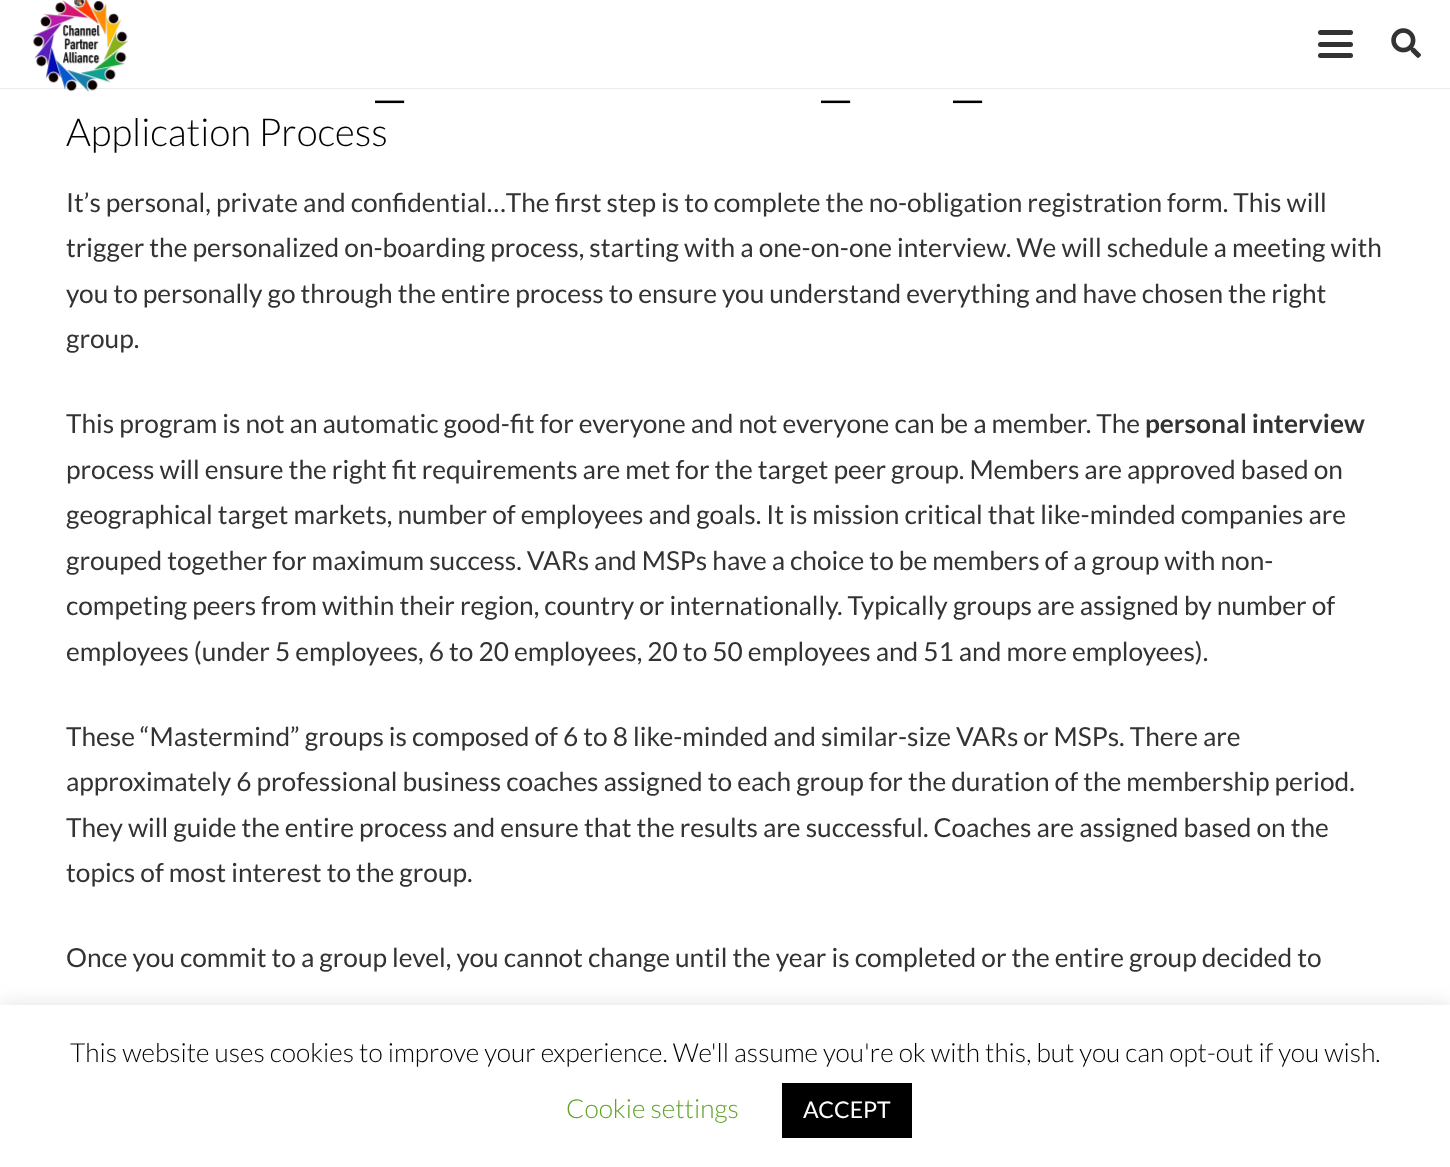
async function draw(canvas) {
  canvas.width = 1450
  canvas.height = 1167
  const ctx = canvas.getContext('2d')
  ctx.miterLimit = 4
  ctx.fontKerning = 'normal'
  async function loadImage(src) {
    const img = new Image()
    img.src = src
    await img.decode()
    return img
  }

  ctx.fillStyle = '#fff'
  ctx.fillRect(0, 0, 1450, 1167)
  ctx.fillStyle = '#00000014'
  ctx.beginPath()
  ctx.moveTo(0, 88)
  ctx.lineTo(0, 89)
  ctx.lineTo(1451, 89)
  ctx.lineTo(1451, 2)
  ctx.lineTo(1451, 88)
  ctx.closePath()
  ctx.fill()
  ctx.drawImage(await loadImage('image0.png'), 33, 0, 96, 92)
  ctx.fillStyle = '#333'
  ctx.beginPath()
  ctx.roundRect(1318, 42, 35, 5, 2.5)
  ctx.fill()
  ctx.beginPath()
  ctx.roundRect(1318, 30, 35, 5, 2.5)
  ctx.fill()
  ctx.beginPath()
  ctx.roundRect(1318, 53, 35, 5, 2.5)
  ctx.fill()
  ctx.drawImage(await loadImage('image1.png'), 1391, 28, 30, 30)
  ctx.font = '300 74px Lato'
  ctx.fillStyle = '#000'
  ctx.fillText('_', 375, 93)
  ctx.fillText('_', 821, 93)
  ctx.fillText('_', 953, 93)
  ctx.font = '300 38.5px Lato'
  ctx.fillText('Application Process', 66, 146)
  ctx.font = '26.25px Lato'
  ctx.fillStyle = '#333'
  ctx.fillText('It’s personal, private and confidential…The first step is to complete the no-obligation registration form. This will', 66, 212)
  ctx.fillText('trigger the personalized on-boarding process, starting with a one-on-one interview. We will schedule a meeting with', 66, 257)
  ctx.fillText('you to personally go through the entire process to ensure you understand everything and have chosen the right', 66, 303)
  ctx.fillText('group.', 66, 348)
  ctx.fillText('This program is not an automatic good-fit for everyone and not everyone can be a member. The', 66, 433)
  ctx.font = 'bold 26.25px Lato'
  ctx.fillText('personal interview', 1145, 433)
  ctx.font = '26.25px Lato'
  ctx.fillText('process will ensure the right fit requirements are met for the target peer group. Members are approved based on', 66, 479)
  ctx.fillText('geographical target markets, number of employees and goals. It is mission critical that like-minded companies are', 66, 524)
  ctx.fillText('grouped together for maximum success. VARs and MSPs have a choice to be members of a group with non-', 66, 570)
  ctx.fillText('competing peers from within their region, country or internationally. Typically groups are assigned by number of', 66, 615)
  ctx.fillText('employees (under 5 employees, 6 to 20 employees, 20 to 50 employees and 51 and more employees).', 66, 661)
  ctx.fillText('These “Mastermind” groups is composed of 6 to 8 like-minded and similar-size VARs or MSPs. There are', 66, 746)
  ctx.fillText('approximately 6 professional business coaches assigned to each group for the duration of the membership period.', 66, 791)
  ctx.fillText('They will guide the entire process and ensure that the results are successful. Coaches are assigned based on the', 66, 837)
  ctx.fillText('topics of most interest to the group.', 66, 882)
  ctx.fillText('Once you commit to a group level, you cannot change until the year is completed or the entire group decided to', 66, 967)
  ctx.fillStyle = '#acabab4d'
  ctx.filter = 'blur(9px)'
  ctx.beginPath()
  ctx.rect(0, 1003, 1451, 163)
  ctx.fill()
  ctx.filter = 'none'
  ctx.fillStyle = '#fff'
  ctx.fillRect(0, 1005, 1450, 162)
  ctx.font = '300 26.25px Lato'
  ctx.fillStyle = '#000'
  ctx.fillText('This website uses cookies to improve your experience. We\'ll assume you\'re ok with this, but you can opt-out if you wish.', 70, 1062)
  ctx.fillStyle = '#62a329'
  ctx.fillText('Cookie settings', 566, 1118)
  ctx.fillStyle = '#000'
  ctx.fillRect(782, 1083, 130, 55)
  ctx.font = '23px Lato'
  ctx.fillStyle = '#fff'
  ctx.fillText('ACCEPT', 803, 1118)
}

draw(document.querySelector('canvas'))
